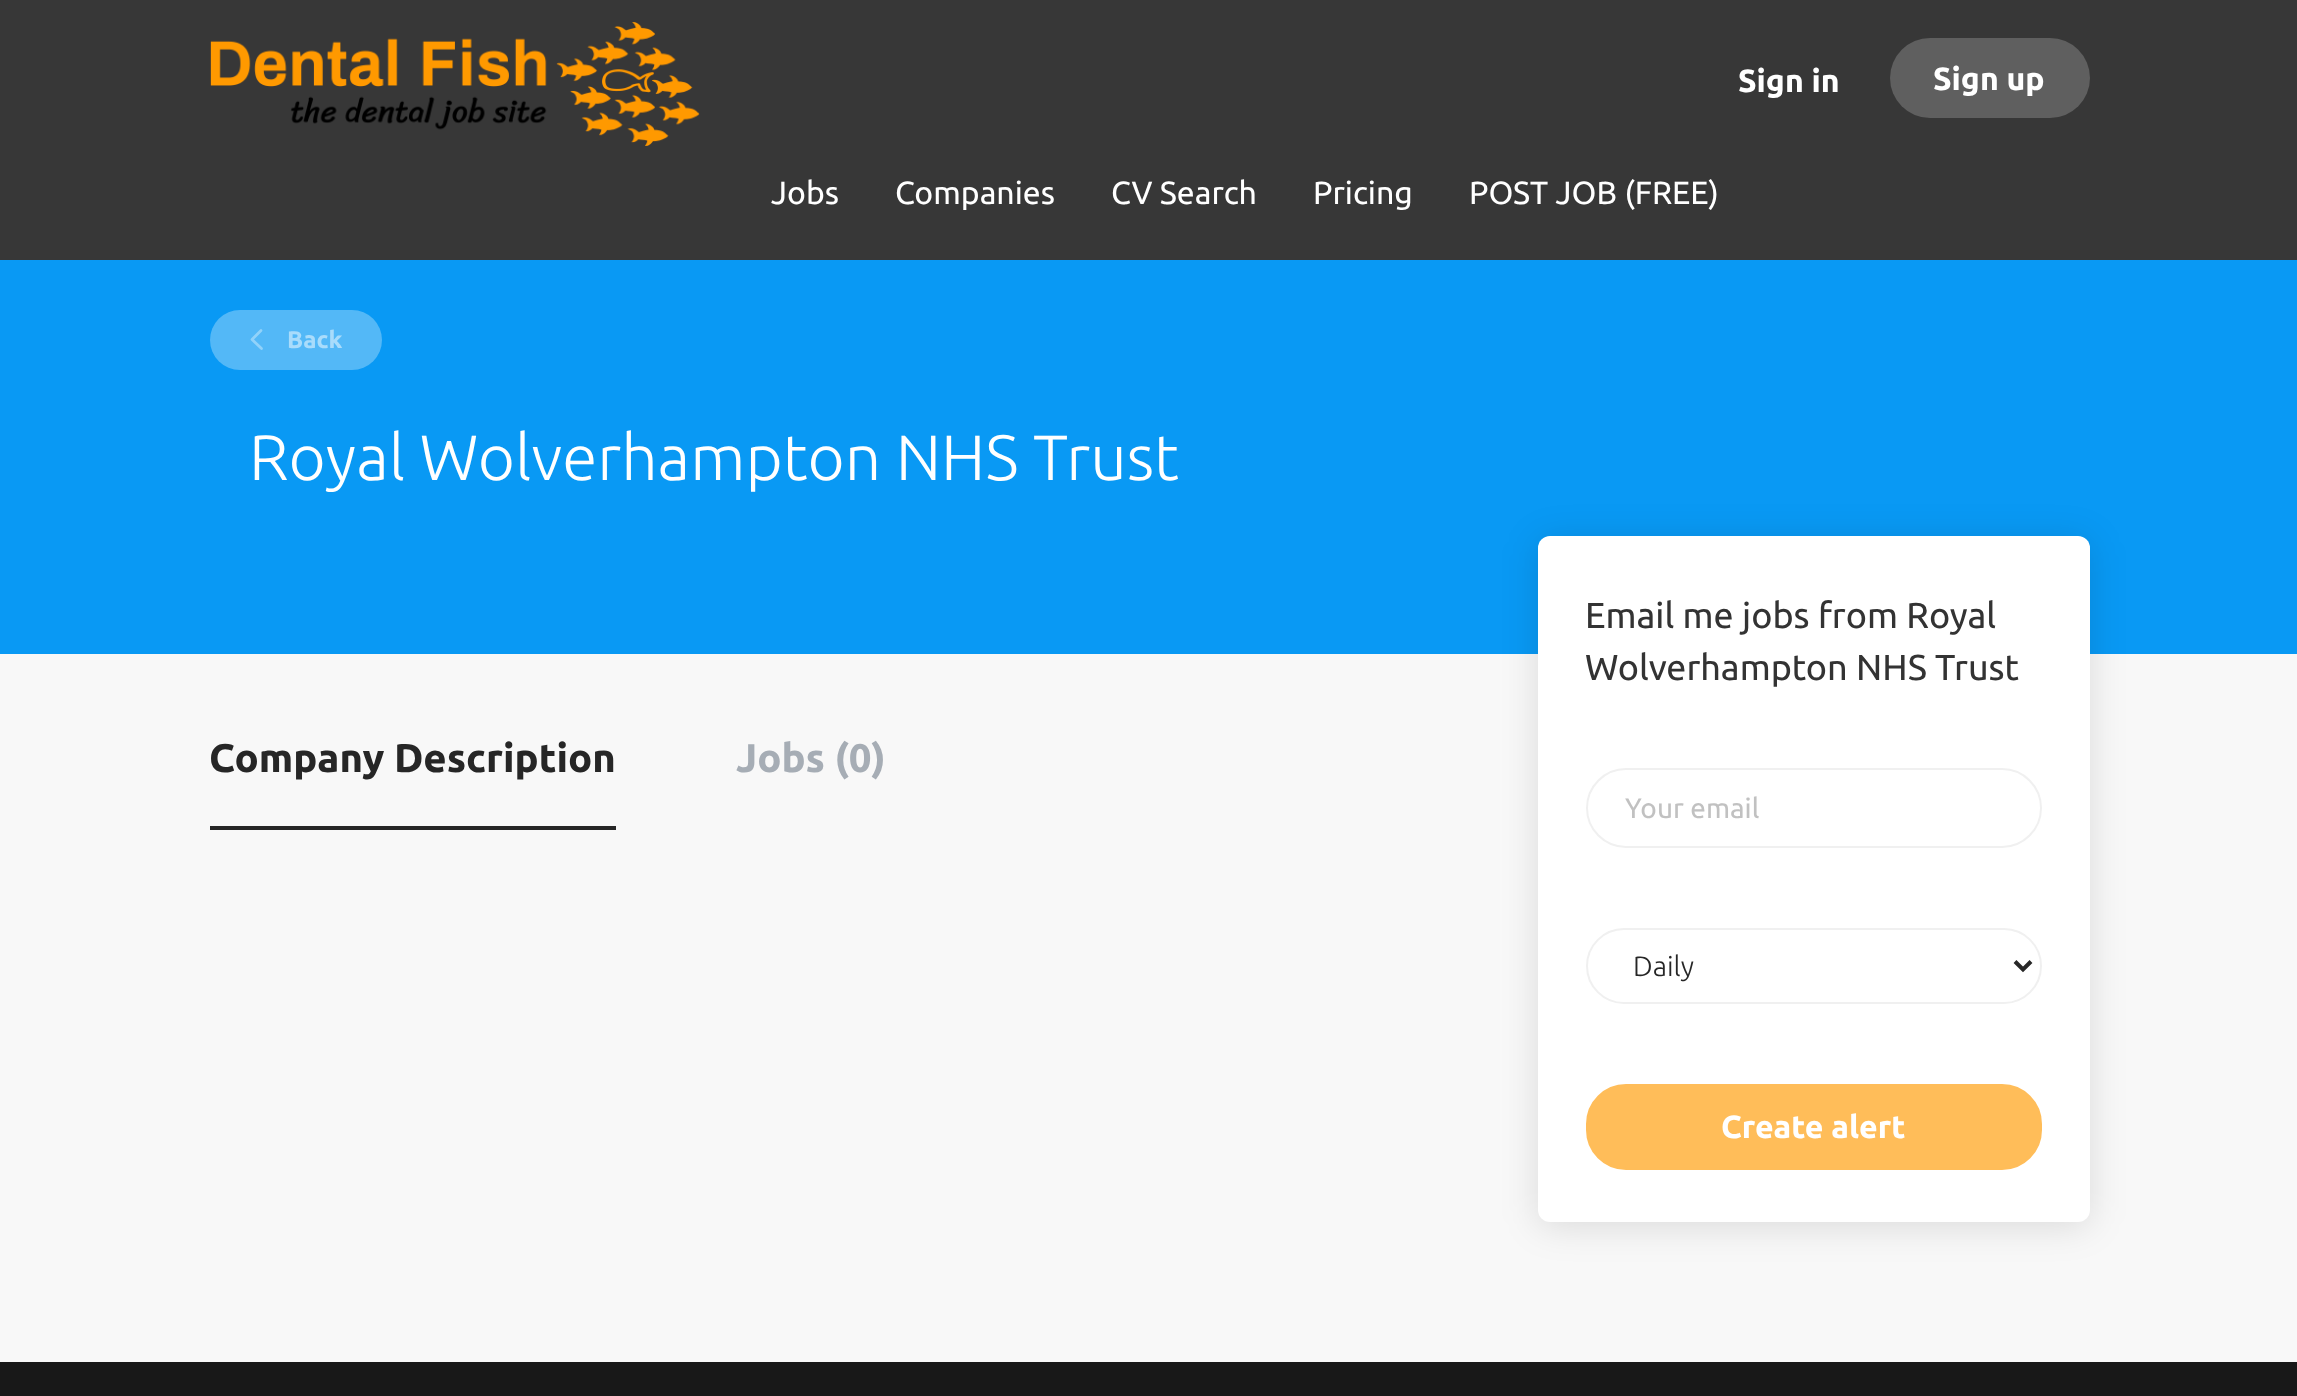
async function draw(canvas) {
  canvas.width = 2297
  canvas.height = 1396
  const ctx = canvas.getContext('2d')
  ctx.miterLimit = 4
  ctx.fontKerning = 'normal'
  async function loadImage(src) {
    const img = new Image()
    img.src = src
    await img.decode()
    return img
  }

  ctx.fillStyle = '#f8f8f8'
  ctx.fillRect(0, 0, 2297, 1396)
  ctx.fillStyle = '#373737'
  ctx.fillRect(0, 0, 2297, 260)
  ctx.drawImage(await loadImage('image0.png'), 210, 22, 490, 124)
  ctx.font = 'bold 32px Ubuntu'
  ctx.fillStyle = '#fff'
  ctx.fillText('Sign in', 1738, 92)
  ctx.fillStyle = '#5f5f5f'
  ctx.beginPath()
  ctx.roundRect(1890, 38, 200, 80, 40)
  ctx.fill()
  ctx.fillStyle = '#fff'
  ctx.fillText('Sign up', 1933, 90)
  ctx.font = '32px Ubuntu'
  ctx.fillText('Jobs', 771, 204)
  ctx.fillText('Companies', 895, 204)
  ctx.fillText('CV Search', 1111, 204)
  ctx.fillText('Pricing', 1313, 204)
  ctx.fillText('POST JOB (FREE)', 1469, 204)
  ctx.fillStyle = '#0999f4'
  ctx.fillRect(0, 260, 2297, 394)
  ctx.fillStyle = '#53b8f7'
  ctx.beginPath()
  ctx.roundRect(210, 310, 172, 60, 30)
  ctx.fill()
  ctx.beginPath()
  ctx.moveTo(261, 330.5)
  ctx.lineTo(252, 339.5)
  ctx.lineTo(261.5, 348.5)
  ctx.strokeStyle = '#91d2fa'
  ctx.lineWidth = 2.8
  ctx.lineCap = 'round'
  ctx.lineJoin = 'round'
  ctx.stroke()
  ctx.font = 'bold 24px Ubuntu'
  ctx.fillStyle = '#a9dcfb'
  ctx.fillText('Back', 287, 348)
  ctx.font = '300 64px Ubuntu'
  ctx.fillStyle = '#fff'
  ctx.fillText('Royal Wolverhampton NHS Trust', 249, 480)
  ctx.fillStyle = '#262626'
  ctx.fillRect(210, 826, 406, 4)
  ctx.font = 'bold 40px Ubuntu'
  ctx.fillText('Company Description', 209, 772)
  ctx.fillStyle = '#a6adb5'
  ctx.fillText('Jobs (0)', 736, 772)
  ctx.fillStyle = '#0000001f'
  ctx.filter = 'blur(18px)'
  ctx.beginPath()
  ctx.roundRect(1538, 540, 552, 686, 12)
  ctx.fill()
  ctx.filter = 'none'
  ctx.fillStyle = '#fff'
  ctx.beginPath()
  ctx.roundRect(1538, 536, 552, 686, 12)
  ctx.fill()
  ctx.font = '36px Ubuntu'
  ctx.fillStyle = '#333'
  ctx.fillText('Email me jobs from Royal', 1585, 628)
  ctx.fillText('Wolverhampton NHS Trust', 1585, 680)
  ctx.beginPath()
  ctx.roundRect(1587, 769, 454, 78, 39)
  ctx.strokeStyle = '#f0f0f0'
  ctx.lineWidth = 2
  ctx.lineJoin = 'miter'
  ctx.stroke()
  ctx.font = '28px Ubuntu'
  ctx.fillStyle = '#c1c1c1'
  ctx.fillText('Your email', 1625, 818)
  ctx.beginPath()
  ctx.roundRect(1587, 929, 454, 74, 37)
  ctx.stroke()
  ctx.beginPath()
  ctx.moveTo(2015, 961.5)
  ctx.lineTo(2023, 969.5)
  ctx.lineTo(2031, 961.5)
  ctx.strokeStyle = '#272727'
  ctx.lineWidth = 4
  ctx.lineCap = 'butt'
  ctx.stroke()
  ctx.font = '300 28px Ubuntu'
  ctx.fillStyle = '#262626'
  ctx.fillText('Daily', 1633, 976)
  ctx.fillStyle = '#ffbd59'
  ctx.beginPath()
  ctx.roundRect(1587, 1085, 454, 84, 39)
  ctx.fill()
  ctx.strokeStyle = '#ffbd59'
  ctx.lineWidth = 2
  ctx.stroke()
  ctx.font = 'bold 32px Ubuntu'
  ctx.fillStyle = '#fff'
  ctx.fillText('Create alert', 1721, 1138)
  ctx.fillStyle = '#181818'
  ctx.fillRect(0, 1362, 2297, 34)
}

draw(document.querySelector('canvas'))
